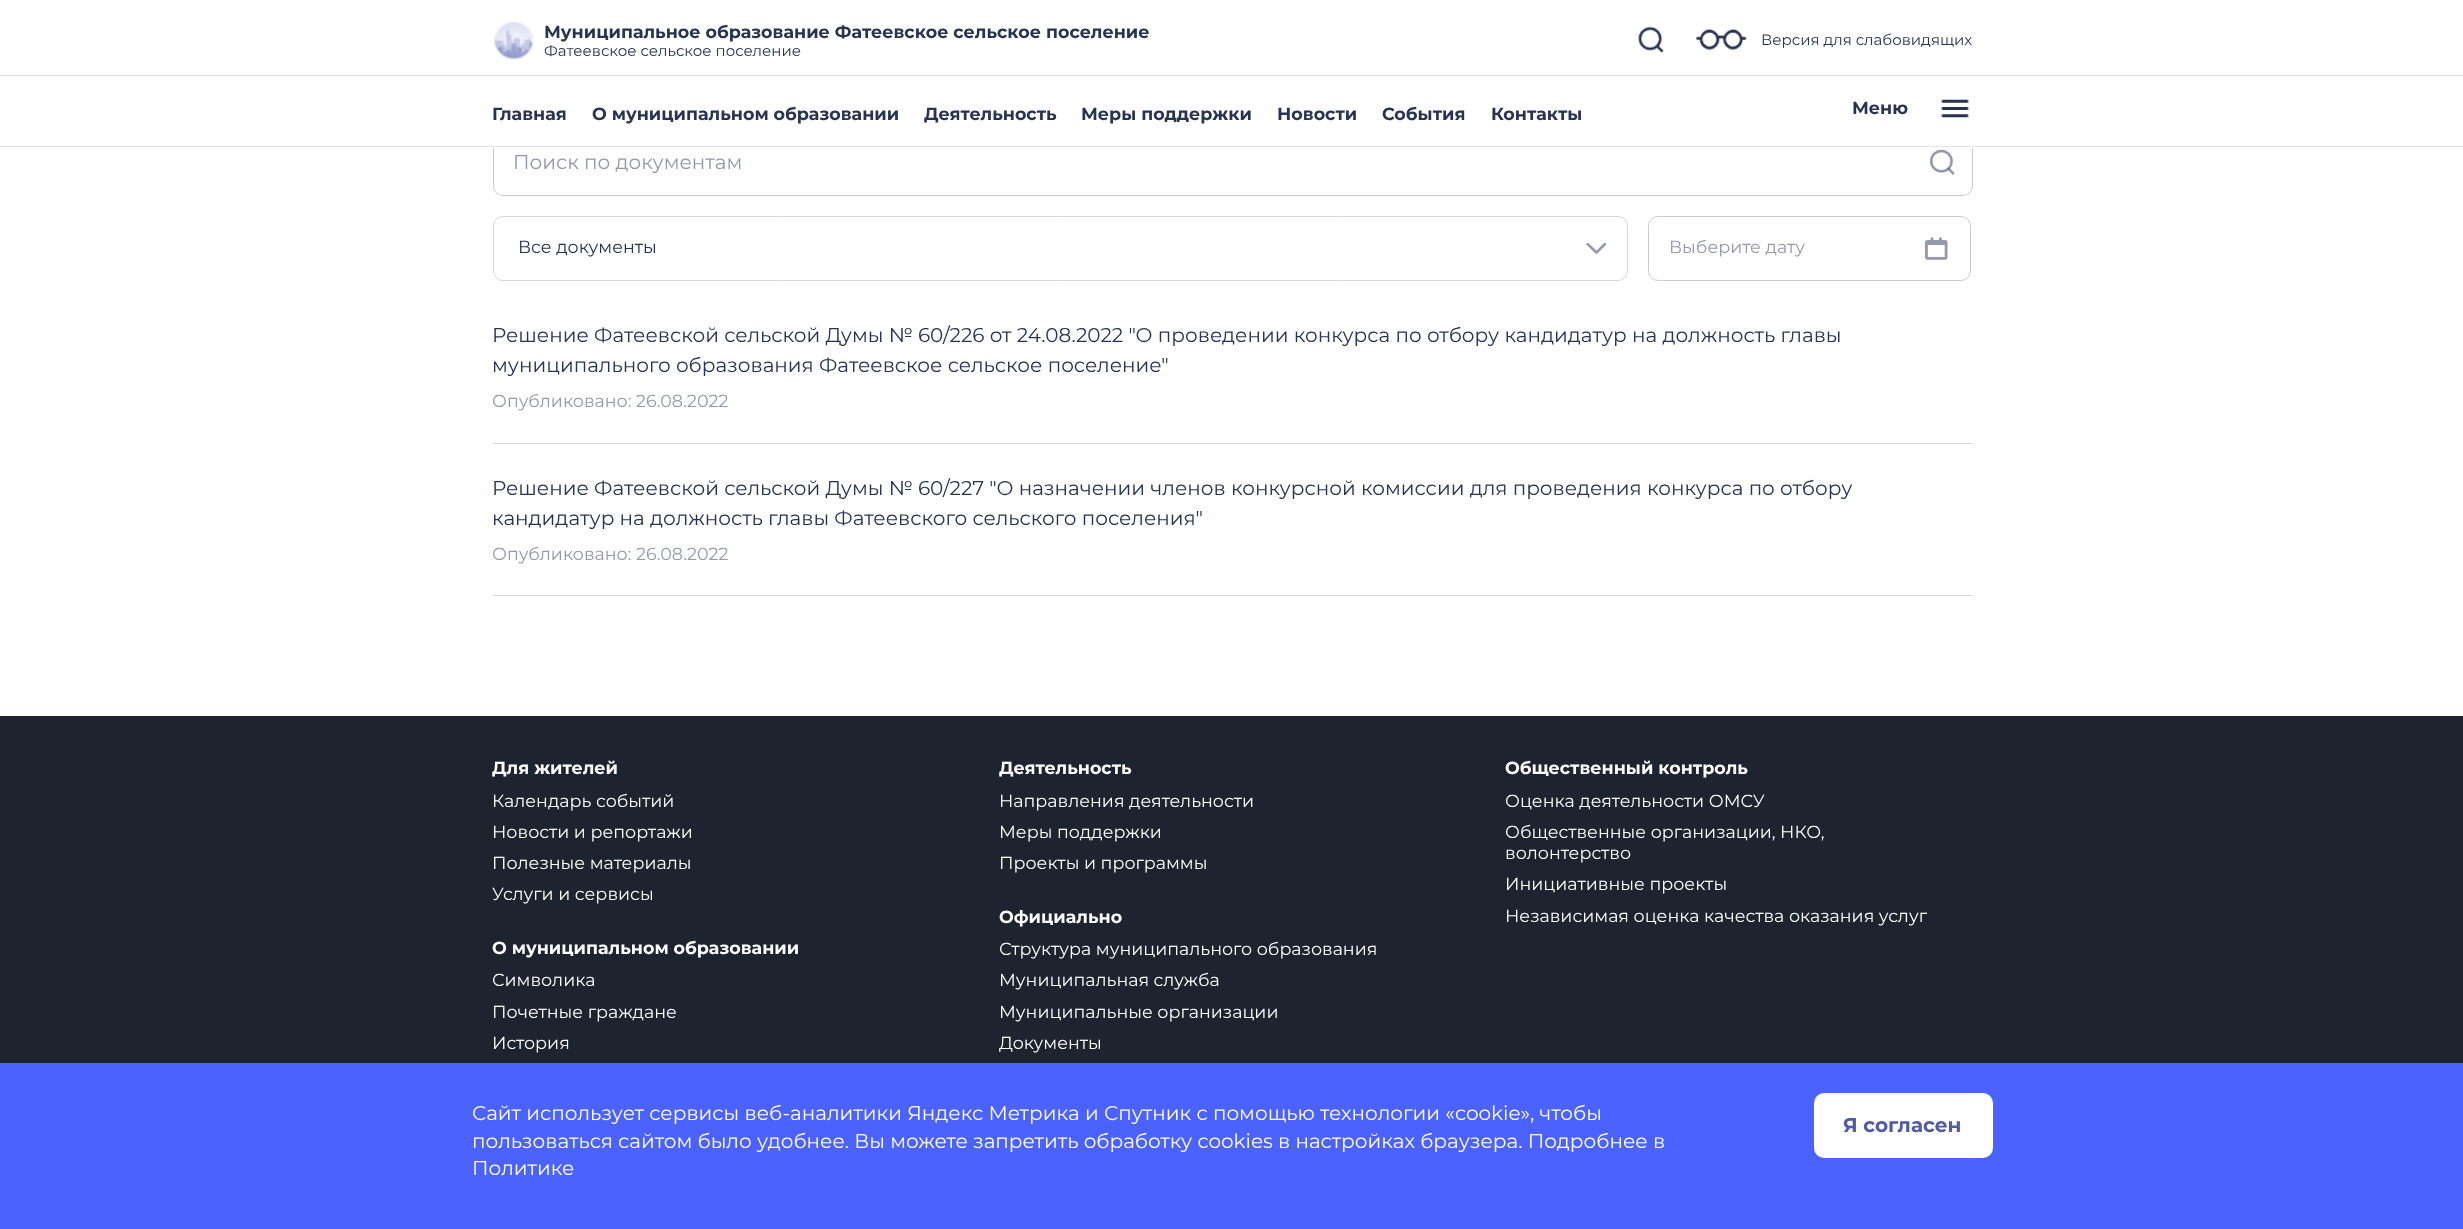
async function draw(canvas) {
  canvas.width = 2463
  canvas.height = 1229
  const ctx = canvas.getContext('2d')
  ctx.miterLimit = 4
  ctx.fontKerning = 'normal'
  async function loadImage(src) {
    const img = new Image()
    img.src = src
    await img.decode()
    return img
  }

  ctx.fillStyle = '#fff'
  ctx.fillRect(0, 0, 2463, 1229)
  ctx.beginPath()
  ctx.roundRect(493.5, 129.5, 1479, 66, 9.5)
  ctx.strokeStyle = '#ccc'
  ctx.stroke()
  ctx.fillRect(493, 129, 1480, 19)
  ctx.fillStyle = '#e3e3e3'
  ctx.fillRect(0, 75, 2463, 1)
  ctx.drawImage(await loadImage('image0.png'), 493, 21, 41, 39)
  ctx.font = 'bold 17.5px Montserrat'
  ctx.fillStyle = '#273350'
  ctx.fillText('Муниципальное образование Фатеевское сельское поселение', 544, 38)
  ctx.font = '15px Montserrat'
  ctx.fillText('Фатеевское сельское поселение', 544, 56)
  ctx.drawImage(await loadImage('image1.png'), 1638, 26, 26, 27)
  ctx.drawImage(await loadImage('image2.png'), 1696, 28, 51, 22)
  ctx.fillText('Версия для слабовидящих', 1761, 45)
  ctx.fillStyle = '#e3e3e3'
  ctx.fillRect(0, 146, 2463, 1)
  ctx.font = 'bold 17.5px Montserrat'
  ctx.fillStyle = '#273350'
  ctx.fillText('Главная', 492, 120)
  ctx.fillText('О муниципальном образовании', 592, 120)
  ctx.fillText('Деятельность', 924, 120)
  ctx.fillText('Меры поддержки', 1081, 120)
  ctx.fillText('Новости', 1277, 120)
  ctx.fillText('События', 1382, 120)
  ctx.fillText('Контакты', 1491, 120)
  ctx.fillText('Меню', 1852, 114)
  ctx.drawImage(await loadImage('image3.png'), 1941, 99, 28, 19)
  ctx.font = '20px Montserrat'
  ctx.fillStyle = '#9399a8'
  ctx.fillText('Поиск по документам', 513, 169)
  ctx.drawImage(await loadImage('image4.png'), 1930, 149, 25, 26)
  ctx.beginPath()
  ctx.roundRect(493.5, 216.5, 1134, 64, 9.5)
  ctx.strokeStyle = '#d4d6dc'
  ctx.stroke()
  ctx.font = '17.5px Montserrat'
  ctx.fillStyle = '#273350'
  ctx.fillText('Все документы', 518, 253)
  ctx.save()
  ctx.beginPath()
  ctx.rect(1586, 243, 20, 11)
  ctx.clip()
  ctx.beginPath()
  ctx.moveTo(1605, 244)
  ctx.lineTo(1596.5, 252.5)
  ctx.lineTo(1587.5, 244)
  ctx.strokeStyle = '#9399a8'
  ctx.lineWidth = 2.5
  ctx.lineCap = 'round'
  ctx.lineJoin = 'round'
  ctx.stroke()
  ctx.restore()
  ctx.beginPath()
  ctx.roundRect(1648.5, 216.5, 322, 64, 9.5)
  ctx.strokeStyle = '#ccc'
  ctx.stroke()
  ctx.fillStyle = '#9399a8'
  ctx.fillText('Выберите дату', 1669, 253)
  ctx.drawImage(await loadImage('image5.png'), 1925, 237, 23, 23)
  ctx.fillStyle = '#d4d6dc'
  ctx.fillRect(493, 443, 1480, 1)
  ctx.font = '20px Montserrat'
  ctx.fillStyle = '#273350'
  ctx.fillText('Решение Фатеевской сельской Думы № 60/226 от 24.08.2022 "О проведении конкурса по отбору кандидатур на должность главы', 492, 342)
  ctx.fillText('муниципального образования Фатеевское сельское поселение"', 492, 372)
  ctx.font = '17.5px Montserrat'
  ctx.fillStyle = '#9399a8'
  ctx.fillText('Опубликовано: 26.08.2022', 492, 407)
  ctx.fillStyle = '#d4d6dc'
  ctx.fillRect(493, 595, 1480, 1)
  ctx.font = '20px Montserrat'
  ctx.fillStyle = '#273350'
  ctx.fillText('Решение Фатеевской сельской Думы № 60/227 "О назначении членов конкурсной комиссии для проведения конкурса по отбору', 492, 495)
  ctx.fillText('кандидатур на должность главы Фатеевского сельского поселения"', 492, 525)
  ctx.font = '17.5px Montserrat'
  ctx.fillStyle = '#9399a8'
  ctx.fillText('Опубликовано: 26.08.2022', 492, 560)
  ctx.fillStyle = '#1d232f'
  ctx.fillRect(0, 716, 2463, 347)
  ctx.font = 'bold 17.5px Montserrat'
  ctx.fillStyle = '#fff'
  ctx.fillText('Для жителей', 492, 774)
  ctx.font = '17.5px Montserrat'
  ctx.fillText('Календарь событий', 492, 807)
  ctx.fillText('Новости и репортажи', 492, 838)
  ctx.fillText('Полезные материалы', 492, 869)
  ctx.fillText('Услуги и сервисы', 492, 900)
  ctx.font = 'bold 17.5px Montserrat'
  ctx.fillText('О муниципальном образовании', 492, 954)
  ctx.font = '17.5px Montserrat'
  ctx.fillText('Символика', 492, 986)
  ctx.fillText('Почетные граждане', 492, 1018)
  ctx.fillText('История', 492, 1049)
  ctx.font = 'bold 17.5px Montserrat'
  ctx.fillText('Деятельность', 999, 774)
  ctx.font = '17.5px Montserrat'
  ctx.fillText('Направления деятельности', 999, 807)
  ctx.fillText('Меры поддержки', 999, 838)
  ctx.fillText('Проекты и программы', 999, 869)
  ctx.font = 'bold 17.5px Montserrat'
  ctx.fillText('Официально', 999, 923)
  ctx.font = '17.5px Montserrat'
  ctx.fillText('Структура муниципального образования', 999, 955)
  ctx.fillText('Муниципальная служба', 999, 986)
  ctx.fillText('Муниципальные организации', 999, 1018)
  ctx.fillText('Документы', 999, 1049)
  ctx.font = 'bold 17.5px Montserrat'
  ctx.fillText('Общественный контроль', 1505, 774)
  ctx.font = '17.5px Montserrat'
  ctx.fillText('Оценка деятельности ОМСУ', 1505, 807)
  ctx.fillText('Общественные организации, НКО,', 1505, 838)
  ctx.fillText('волонтерство', 1505, 859)
  ctx.fillText('Инициативные проекты', 1505, 890)
  ctx.fillText('Независимая оценка качества оказания услуг', 1505, 922)
  ctx.fillStyle = '#4b62ff'
  ctx.fillRect(0, 1063, 2463, 166)
  ctx.font = '20px Montserrat'
  ctx.fillStyle = '#fff'
  ctx.fillText('Сайт использует сервисы веб-аналитики Яндекс Метрика и Спутник с помощью технологии «cookie», чтобы', 472, 1120)
  ctx.fillText('пользоваться сайтом было удобнее. Вы можете запретить обработку cookies в настройках браузера. Подробнее в', 472, 1148)
  ctx.fillText('Политике', 472, 1175)
  ctx.beginPath()
  ctx.roundRect(1814, 1093, 179, 65, 10)
  ctx.fill()
  ctx.font = 'bold 20px Montserrat'
  ctx.fillStyle = '#4f5aa8'
  ctx.fillText('Я согласен', 1843, 1132)
}

draw(document.querySelector('canvas'))
